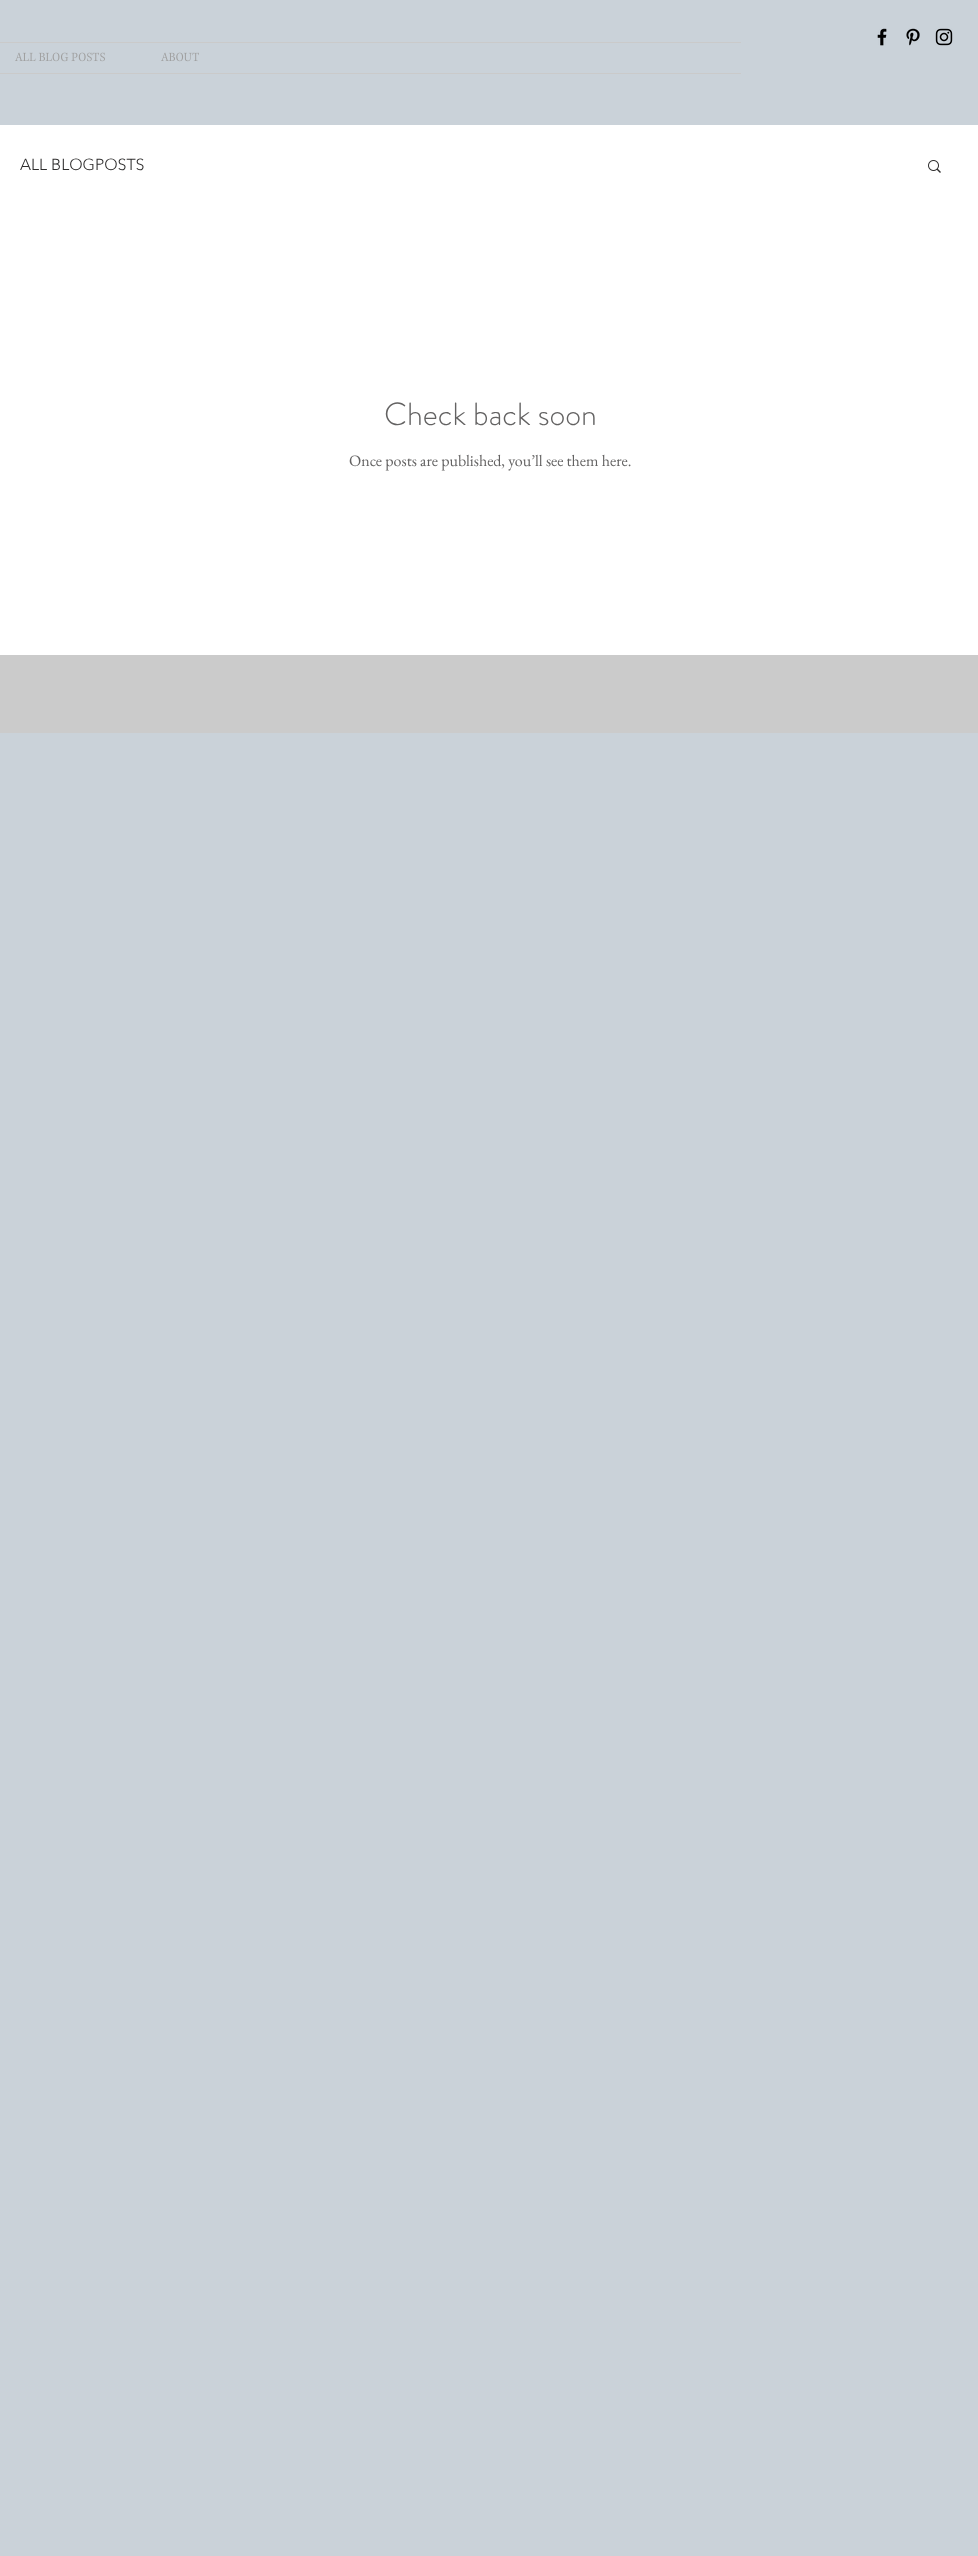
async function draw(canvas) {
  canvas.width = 978
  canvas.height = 2556
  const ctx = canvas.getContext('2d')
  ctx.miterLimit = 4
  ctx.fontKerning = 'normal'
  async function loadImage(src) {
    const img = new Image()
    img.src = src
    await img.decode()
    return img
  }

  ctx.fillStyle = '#cad2d9'
  ctx.fillRect(0, 0, 978, 2556)
  ctx.drawImage(await loadImage('image0.png'), 877, 28, 10, 18)
  ctx.drawImage(await loadImage('image1.png'), 906, 28, 14, 18)
  ctx.drawImage(await loadImage('image2.png'), 935, 28, 18, 18)
  ctx.fillStyle = '#cacaca'
  ctx.fillRect(0, 42, 741, 1)
  ctx.fillRect(0, 73, 741, 1)
  ctx.drawImage(await loadImage('image3.png'), 15, 52, 90, 10)
  ctx.drawImage(await loadImage('image4.png'), 161, 52, 38, 10)
  ctx.fillStyle = '#fff'
  ctx.fillRect(0, 125, 978, 530)
  ctx.font = '300 16px "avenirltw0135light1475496"'
  ctx.fillStyle = '#2f2e2e'
  ctx.fillText('ALL BLOGPOSTS', 20, 170)
  ctx.drawImage(await loadImage('image5.png'), 928, 160, 13, 13)
  ctx.font = '300 32px "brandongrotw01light"'
  ctx.fillStyle = '#636262'
  ctx.fillText('Check back soon', 384, 425)
  ctx.font = '16px EB Garamond'
  ctx.fillText('Once posts are published, you’ll see them here.', 349, 466)
  ctx.fillStyle = '#cbcbcb'
  ctx.fillRect(0, 655, 978, 78)
}

draw(document.querySelector('canvas'))
